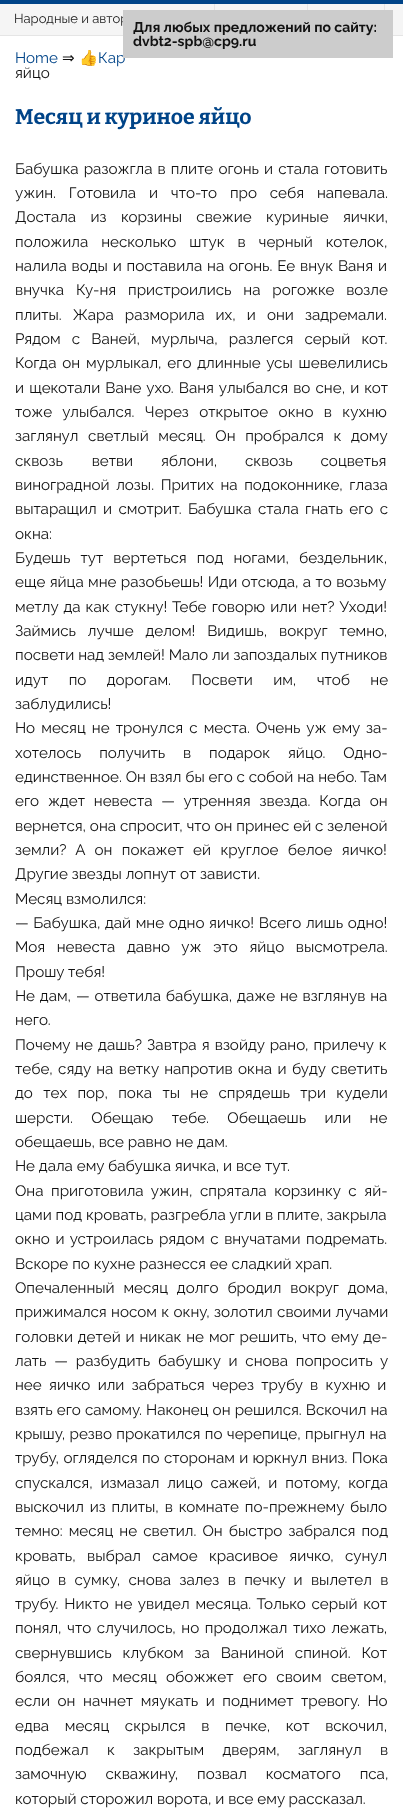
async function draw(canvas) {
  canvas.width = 403
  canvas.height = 1818
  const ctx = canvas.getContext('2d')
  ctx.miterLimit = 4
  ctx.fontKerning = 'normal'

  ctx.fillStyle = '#fff'
  ctx.fillRect(0, 0, 403, 1818)
  ctx.fillStyle = '#048'
  ctx.fillRect(0, 0, 403, 4)
  ctx.fillStyle = '#f5f5f5'
  ctx.fillRect(0, 4, 403, 31)
  ctx.fillStyle = '#e5e5e5'
  ctx.fillRect(0, 35, 403, 1)
  ctx.fillRect(307, 4, 1, 6)
  ctx.fillRect(384, 4, 1, 6)
  ctx.fillRect(214, 4, 1, 6)
  ctx.font = '13px Raleway'
  ctx.fillStyle = '#222'
  ctx.fillText('Народные и автор', 14, 23)
  ctx.font = '15.2px Raleway'
  ctx.fillStyle = '#048'
  ctx.fillText('Home', 15, 63)
  ctx.font = '15.2px DejaVu Sans'
  ctx.fillStyle = '#111'
  ctx.fillText('⇒', 62, 63)
  ctx.font = '15.2px Noto Color Emoji'
  ctx.fillStyle = '#048'
  ctx.fillText('👍', 79, 63)
  ctx.font = '15.2px Raleway'
  ctx.fillText('Кар', 98, 63)
  ctx.fillStyle = '#111'
  ctx.fillText('яйцо', 15, 78)
  ctx.font = 'bold 21.25px Bitter'
  ctx.fillStyle = '#048'
  ctx.fillText('Месяц и куриное яйцо', 15, 124)
  ctx.wordSpacing = '1.25px'
  ctx.font = '15.2px Raleway'
  ctx.fillStyle = '#111'
  ctx.fillText('Бабушка разожгла в плите огонь и стала готовить', 15, 174)
  ctx.wordSpacing = '9px'
  ctx.fillText('ужин. Готовила и что-то про себя напевала.', 15, 198)
  ctx.wordSpacing = '10.5px'
  ctx.fillText('Достала из корзины свежие куриные яички,', 15, 222)
  ctx.wordSpacing = '9px'
  ctx.fillText('положила несколько штук в черный котелок,', 15, 247)
  ctx.wordSpacing = '1px'
  ctx.fillText('налила воды и поставила на огонь. Ее внук Ваня и', 15, 271)
  ctx.wordSpacing = '8px'
  ctx.fillText('внучка Ку-ня пристроились на рогожке возле', 15, 295)
  ctx.wordSpacing = '7.25px'
  ctx.fillText('плиты. Жара разморила их, и они задремали.', 15, 320)
  ctx.fillText('Рядом с Ваней, мурлыча, разлегся серый кот.', 15, 344)
  ctx.wordSpacing = '2px'
  ctx.fillText('Когда он мурлыкал, его длинные усы шевелились', 15, 368)
  ctx.wordSpacing = '1.25px'
  ctx.fillText('и щекотали Ване ухо. Ваня улыбался во сне, и кот', 15, 393)
  ctx.wordSpacing = '6.5px'
  ctx.fillText('тоже улыбался. Через открытое окно в кухню', 15, 417)
  ctx.wordSpacing = '5.75px'
  ctx.fillText('заглянул светлый месяц. Он пробрался к дому', 15, 441)
  ctx.wordSpacing = '25px'
  ctx.fillText('сквозь ветви', 15, 466)
  ctx.wordSpacing = '24px'
  ctx.fillText('яблони, сквозь соцветья', 161, 466)
  ctx.wordSpacing = '2.75px'
  ctx.fillText('виноградной лозы. Притих на подоконнике, глаза', 15, 490)
  ctx.wordSpacing = '2.5px'
  ctx.fillText('вытаращил и смотрит. Бабушка стала гнать его с', 15, 514)
  ctx.wordSpacing = '0px'
  ctx.fillText('окна:', 15, 539)
  ctx.wordSpacing = '6.25px'
  ctx.fillText('Будешь тут вертеться под ногами, бездельник,', 15, 563)
  ctx.wordSpacing = '0.5px'
  ctx.fillText('еще яйца мне разобьешь! Иди отсюда, а то возьму', 15, 587)
  ctx.wordSpacing = '1.25px'
  ctx.fillText('метлу да как стукну! Тебе говорю или нет? Уходи!', 15, 612)
  ctx.wordSpacing = '8px'
  ctx.fillText('Займись лучше делом! Видишь, вокруг темно,', 15, 636)
  ctx.wordSpacing = '0px'
  ctx.fillText('посвети над землей! Мало ли запоздалых путников', 15, 660)
  ctx.wordSpacing = '16.5px'
  ctx.fillText('идут по дорогам. Посвети им, чтоб не', 15, 685)
  ctx.wordSpacing = '0px'
  ctx.fillText('заблудились!', 15, 709)
  ctx.wordSpacing = '2.25px'
  ctx.fillText('Но месяц не тронулся с места. Очень уж ему за-', 15, 733)
  ctx.wordSpacing = '14px'
  ctx.fillText('хотелось получить в подарок яйцо. Одно-', 15, 758)
  ctx.wordSpacing = '0px'
  ctx.fillText('единственное. Он взял бы его с собой на небо. Там', 15, 782)
  ctx.wordSpacing = '5px'
  ctx.fillText('его ждет невеста — утренняя звезда. Когда он', 15, 806)
  ctx.wordSpacing = '0px'
  ctx.fillText('вернется, она спросит, что он принес ей с зеленой', 15, 831)
  ctx.wordSpacing = '5.5px'
  ctx.fillText('земли? А он покажет ей круглое белое яичко!', 15, 855)
  ctx.wordSpacing = '0px'
  ctx.fillText('Другие звезды лопнут от зависти.', 15, 879)
  ctx.fillText('Месяц взмолился:', 15, 904)
  ctx.wordSpacing = '0.75px'
  ctx.fillText('— Бабушка, дай мне одно яичко! Всего лишь одно!', 15, 928)
  ctx.wordSpacing = '7.75px'
  ctx.fillText('Моя невеста давно уж это яйцо высмотрела.', 15, 952)
  ctx.wordSpacing = '0px'
  ctx.fillText('Прошу тебя!', 15, 977)
  ctx.wordSpacing = '1px'
  ctx.fillText('Не дам, — ответила бабушка, даже не взглянув на', 15, 1001)
  ctx.wordSpacing = '0px'
  ctx.fillText('него.', 15, 1025)
  ctx.wordSpacing = '1.25px'
  ctx.fillText('Почему не дашь? Завтра я взойду рано, прилечу к', 15, 1050)
  ctx.wordSpacing = '1.5px'
  ctx.fillText('тебе, сяду на ветку напротив окна и буду светить', 15, 1074)
  ctx.wordSpacing = '6.5px'
  ctx.fillText('до тех пор, пока ты не спрядешь три кудели', 15, 1098)
  ctx.wordSpacing = '14.5px'
  ctx.fillText('шерсти. Обещаю тебе. Обещаешь или не', 15, 1123)
  ctx.wordSpacing = '0px'
  ctx.fillText('обещаешь, все равно не дам.', 15, 1147)
  ctx.fillText('Не дала ему бабушка яичка, и все тут.', 15, 1171)
  ctx.wordSpacing = '3.75px'
  ctx.fillText('Она приготовила ужин, спрятала корзинку с яй-', 15, 1196)
  ctx.wordSpacing = '0px'
  ctx.fillText('цами под кровать, разгребла угли в плите, закрыла', 15, 1220)
  ctx.wordSpacing = '1.75px'
  ctx.fillText('окно и устроилась рядом с внучатами подремать.', 15, 1244)
  ctx.wordSpacing = '0px'
  ctx.fillText('Вскоре по кухне разнесся ее сладкий храп.', 15, 1269)
  ctx.wordSpacing = '5px'
  ctx.fillText('Опечаленный месяц долго бродил вокруг дома,', 15, 1293)
  ctx.wordSpacing = '0.5px'
  ctx.fillText('прижимался носом к окну, золотил своими лучами', 15, 1317)
  ctx.wordSpacing = '1px'
  ctx.fillText('головки детей и никак не мог решить, что ему де-', 15, 1342)
  ctx.wordSpacing = '4px'
  ctx.fillText('лать — разбудить бабушку и снова попросить у', 15, 1366)
  ctx.wordSpacing = '3.5px'
  ctx.fillText('нее яичко или забраться через трубу в кухню и', 15, 1390)
  ctx.wordSpacing = '0.25px'
  ctx.fillText('взять его самому. Наконец он решился. Вскочил на', 15, 1415)
  ctx.wordSpacing = '0.5px'
  ctx.fillText('крышу, резво прокатился по черепице, прыгнул на', 15, 1439)
  ctx.fillText('трубу, огляделся по сторонам и юркнул вниз. Пока', 15, 1463)
  ctx.wordSpacing = '4px'
  ctx.fillText('спускался, измазал лицо сажей, и потому, когда', 15, 1488)
  ctx.wordSpacing = '2px'
  ctx.fillText('выскочил из плиты, в комнате по-прежнему было', 15, 1512)
  ctx.wordSpacing = '2.25px'
  ctx.fillText('темно: месяц не светил. Он быстро забрался под', 15, 1536)
  ctx.wordSpacing = '7.5px'
  ctx.fillText('кровать, выбрал самое красивое яичко, сунул', 15, 1561)
  ctx.wordSpacing = '4.5px'
  ctx.fillText('яйцо в сумку, снова залез в печку и вылетел в', 15, 1585)
  ctx.wordSpacing = '2px'
  ctx.fillText('трубу. Никто не увидел месяца. Только серый кот', 15, 1609)
  ctx.wordSpacing = '1.75px'
  ctx.fillText('понял, что случилось, но продолжал тихо лежать,', 15, 1633)
  ctx.wordSpacing = '7px'
  ctx.fillText('свернувшись клубком за Ваниной спиной. Кот', 15, 1658)
  ctx.wordSpacing = '5.5px'
  ctx.fillText('боялся, что месяц обожжет его своим светом,', 15, 1682)
  ctx.wordSpacing = '3.75px'
  ctx.fillText('если он начнет мяукать и поднимет тревогу. Но', 15, 1706)
  ctx.wordSpacing = '11.75px'
  ctx.fillText('едва месяц скрылся в печке, кот вскочил,', 15, 1731)
  ctx.wordSpacing = '14.5px'
  ctx.fillText('подбежал к закрытым дверям, заглянул в', 15, 1755)
  ctx.wordSpacing = '15px'
  ctx.fillText('замочную скважину, позвал косматого пса,', 15, 1779)
  ctx.wordSpacing = '0px'
  ctx.fillText('который сторожил ворота, и все ему рассказал.', 15, 1804)
  ctx.fillStyle = '#ccc'
  ctx.fillRect(123, 10, 270, 48)
  ctx.font = 'bold 14px Raleway'
  ctx.fillStyle = '#111'
  ctx.fillText('Для любых предложений по сайту:', 133, 32)
  ctx.fillText('dvbt2-spb@cp9.ru', 133, 46)
}

draw(document.querySelector('canvas'))
